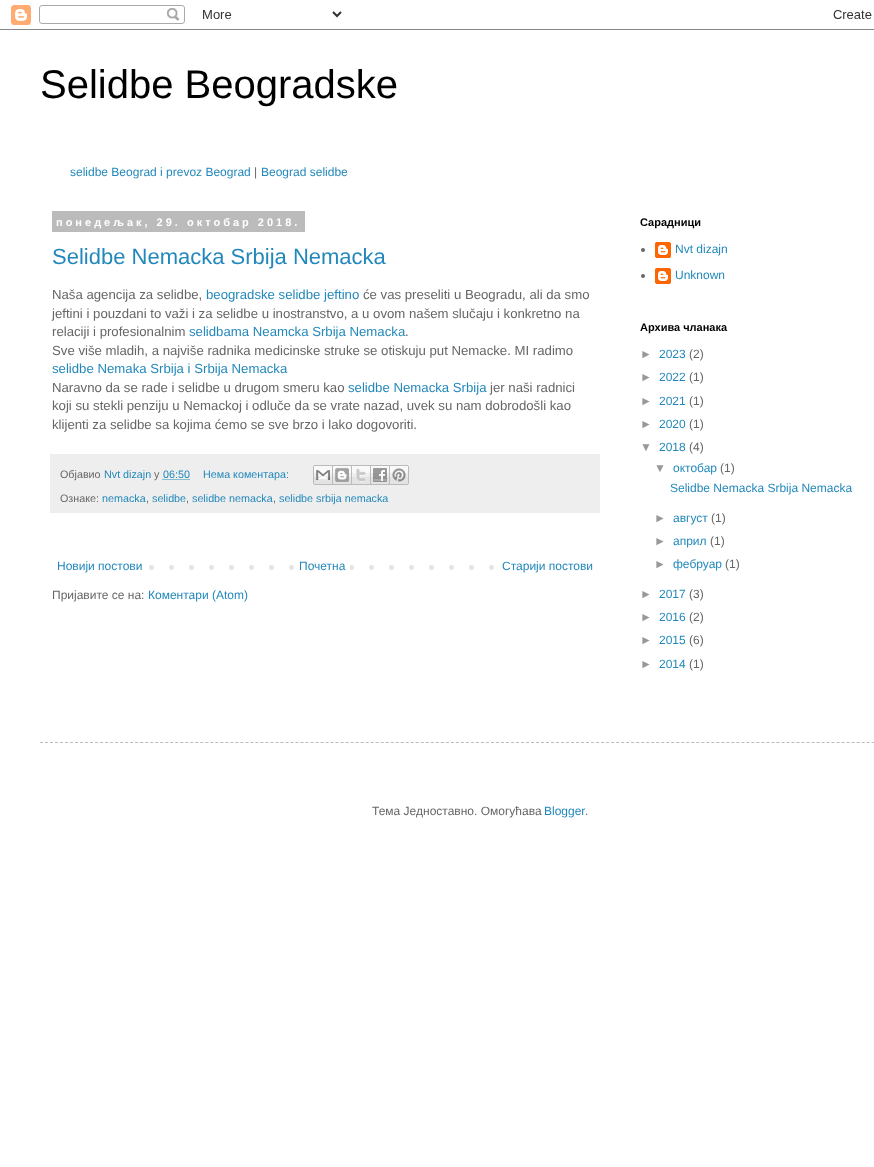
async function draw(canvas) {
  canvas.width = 874
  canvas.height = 1167
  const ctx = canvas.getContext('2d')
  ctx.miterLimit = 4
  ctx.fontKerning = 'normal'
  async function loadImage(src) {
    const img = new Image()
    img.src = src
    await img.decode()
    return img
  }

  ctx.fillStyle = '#fff'
  ctx.fillRect(0, 0, 874, 1167)
  ctx.drawImage(await loadImage('image0.png'), 0, 5, 874, 25)
  ctx.font = '40px Liberation Sans'
  ctx.fillStyle = '#000'
  ctx.fillText('Selidbe Beogradske', 40, 98)
  ctx.font = '12px Liberation Sans'
  ctx.fillStyle = '#28b'
  ctx.fillText('selidbe Beograd i prevoz Beograd', 70, 176)
  ctx.fillStyle = '#666'
  ctx.fillText('|', 254, 176)
  ctx.fillStyle = '#28b'
  ctx.fillText('Beograd selidbe', 261, 176)
  ctx.fillStyle = '#bbb'
  ctx.fillRect(52, 211, 253, 21)
  ctx.letterSpacing = '3px'
  ctx.font = 'bold 11px Liberation Sans'
  ctx.fillStyle = '#fff'
  ctx.fillText('понедељак, 29. октобар 2018.', 56, 226)
  ctx.letterSpacing = '0px'
  ctx.font = '22px Liberation Sans'
  ctx.fillStyle = '#28b'
  ctx.fillText('Selidbe Nemacka Srbija Nemacka', 52, 264)
  ctx.font = '13.2px Liberation Sans'
  ctx.fillStyle = '#666'
  ctx.fillText('Naša agencija za selidbe,', 52, 299)
  ctx.fillStyle = '#28b'
  ctx.fillText('beogradske selidbe jeftino', 206, 299)
  ctx.fillStyle = '#666'
  ctx.fillText('će vas preseliti u Beogradu, ali da smo', 363, 299)
  ctx.fillText('jeftini i pouzdani to važi i za selidbe u inostranstvo, a u ovom našem slučaju i konkretno na', 52, 318)
  ctx.fillText('relaciji i profesionalnim', 52, 336)
  ctx.fillStyle = '#28b'
  ctx.fillText('selidbama Neamcka Srbija Nemacka', 189, 336)
  ctx.fillStyle = '#666'
  ctx.fillText('.', 405, 336)
  ctx.fillText('Sve više mladih, a najviše radnika medicinske struke se otiskuju put Nemacke. MI radimo', 52, 355)
  ctx.fillStyle = '#28b'
  ctx.fillText('selidbe Nemaka Srbija i Srbija Nemacka', 52, 373)
  ctx.fillStyle = '#666'
  ctx.fillText('Naravno da se rade i selidbe u drugom smeru kao', 52, 392)
  ctx.fillStyle = '#28b'
  ctx.fillText('selidbe Nemacka Srbija', 348, 392)
  ctx.fillStyle = '#666'
  ctx.fillText('jer naši radnici', 490, 392)
  ctx.fillText('koji su stekli penziju u Nemackoj i odluče da se vrate nazad, uvek su nam dobrodošli kao', 52, 410)
  ctx.fillText('klijenti za selidbe sa kojima ćemo se sve brzo i lako dogovoriti.', 52, 429)
  ctx.fillStyle = '#eee'
  ctx.fillRect(50, 454, 550, 59)
  ctx.font = '10.75px Liberation Sans'
  ctx.fillStyle = '#666'
  ctx.fillText('Објавио', 60, 478)
  ctx.fillStyle = '#28b'
  ctx.fillText('Nvt dizajn', 104, 478)
  ctx.fillStyle = '#666'
  ctx.fillText('у', 154, 478)
  ctx.beginPath()
  ctx.moveTo(162.5, 479.5)
  ctx.lineTo(189.5, 479.5)
  ctx.strokeStyle = '#28b'
  ctx.setLineDash([1, 1])
  ctx.stroke()
  ctx.fillStyle = '#28b'
  ctx.fillText('06:50', 163, 478)
  ctx.fillText('Нема коментара:', 203, 478)
  ctx.drawImage(await loadImage('image1.png'), 313, 465, 20, 20)
  ctx.drawImage(await loadImage('image2.png'), 333, 465, 19, 20)
  ctx.drawImage(await loadImage('image3.png'), 352, 465, 19, 20)
  ctx.drawImage(await loadImage('image4.png'), 371, 465, 19, 20)
  ctx.drawImage(await loadImage('image5.png'), 390, 465, 19, 20)
  ctx.fillStyle = '#666'
  ctx.fillText('Ознаке:', 60, 502)
  ctx.fillStyle = '#28b'
  ctx.fillText('nemacka', 102, 502)
  ctx.fillStyle = '#666'
  ctx.fillText(',', 146, 502)
  ctx.fillStyle = '#28b'
  ctx.fillText('selidbe', 152, 502)
  ctx.fillStyle = '#666'
  ctx.fillText(',', 186, 502)
  ctx.fillStyle = '#28b'
  ctx.fillText('selidbe nemacka', 192, 502)
  ctx.fillStyle = '#666'
  ctx.fillText(',', 273, 502)
  ctx.fillStyle = '#28b'
  ctx.fillText('selidbe srbija nemacka', 279, 502)
  ctx.drawImage(await loadImage('image6.png'), 149, 565, 345, 5)
  ctx.font = '12px Liberation Sans'
  ctx.fillText('Новији постови', 57, 570)
  ctx.fillStyle = '#fff'
  ctx.fillRect(294, 565, 56, 5)
  ctx.fillStyle = '#28b'
  ctx.fillText('Почетна', 299, 570)
  ctx.fillText('Старији постови', 502, 570)
  ctx.fillStyle = '#666'
  ctx.fillText('Пријавите се на:', 52, 599)
  ctx.fillStyle = '#28b'
  ctx.fillText('Коментари (Atom)', 148, 599)
  ctx.font = 'bold 11px Liberation Sans'
  ctx.fillStyle = '#000'
  ctx.fillText('Сарадници', 640, 226)
  ctx.fillStyle = '#666'
  ctx.beginPath()
  ctx.arc(643, 250, 2, 0, 2 * Math.PI)
  ctx.fill()
  ctx.drawImage(await loadImage('image7.png'), 655, 242, 16, 16)
  ctx.font = '12px Liberation Sans'
  ctx.fillStyle = '#28b'
  ctx.fillText('Nvt dizajn', 675, 253)
  ctx.fillStyle = '#666'
  ctx.beginPath()
  ctx.arc(643, 276, 2, 0, 2 * Math.PI)
  ctx.fill()
  ctx.drawImage(await loadImage('image7.png'), 655, 268, 16, 16)
  ctx.fillStyle = '#28b'
  ctx.fillText('Unknown', 675, 279)
  ctx.font = 'bold 11px Liberation Sans'
  ctx.fillStyle = '#000'
  ctx.fillText('Архива чланака', 640, 331)
  ctx.font = '12px Liberation Sans'
  ctx.fillStyle = '#999'
  ctx.fillText('►', 640, 358)
  ctx.fillStyle = '#28b'
  ctx.fillText('2023', 659, 358)
  ctx.fillStyle = '#666'
  ctx.fillText('(2)', 689, 358)
  ctx.fillStyle = '#999'
  ctx.fillText('►', 640, 381)
  ctx.fillStyle = '#28b'
  ctx.fillText('2022', 659, 381)
  ctx.fillStyle = '#666'
  ctx.fillText('(1)', 689, 381)
  ctx.fillStyle = '#999'
  ctx.fillText('►', 640, 405)
  ctx.fillStyle = '#28b'
  ctx.fillText('2021', 659, 405)
  ctx.fillStyle = '#666'
  ctx.fillText('(1)', 689, 405)
  ctx.fillStyle = '#999'
  ctx.fillText('►', 640, 428)
  ctx.fillStyle = '#28b'
  ctx.fillText('2020', 659, 428)
  ctx.fillStyle = '#666'
  ctx.fillText('(1)', 689, 428)
  ctx.fillStyle = '#999'
  ctx.fillText('▼', 640, 451)
  ctx.fillStyle = '#28b'
  ctx.fillText('2018', 659, 451)
  ctx.fillStyle = '#666'
  ctx.fillText('(4)', 689, 451)
  ctx.fillStyle = '#999'
  ctx.fillText('▼', 654, 472)
  ctx.fillStyle = '#28b'
  ctx.fillText('октобар', 673, 472)
  ctx.fillStyle = '#666'
  ctx.fillText('(1)', 720, 472)
  ctx.fillStyle = '#28b'
  ctx.fillText('Selidbe Nemacka Srbija Nemacka', 670, 492)
  ctx.fillStyle = '#999'
  ctx.fillText('►', 654, 522)
  ctx.fillStyle = '#28b'
  ctx.fillText('август', 673, 522)
  ctx.fillStyle = '#666'
  ctx.fillText('(1)', 711, 522)
  ctx.fillStyle = '#999'
  ctx.fillText('►', 654, 545)
  ctx.fillStyle = '#28b'
  ctx.fillText('април', 673, 545)
  ctx.fillStyle = '#666'
  ctx.fillText('(1)', 710, 545)
  ctx.fillStyle = '#999'
  ctx.fillText('►', 654, 568)
  ctx.fillStyle = '#28b'
  ctx.fillText('фебруар', 673, 568)
  ctx.fillStyle = '#666'
  ctx.fillText('(1)', 725, 568)
  ctx.fillStyle = '#999'
  ctx.fillText('►', 640, 598)
  ctx.fillStyle = '#28b'
  ctx.fillText('2017', 659, 598)
  ctx.fillStyle = '#666'
  ctx.fillText('(3)', 689, 598)
  ctx.fillStyle = '#999'
  ctx.fillText('►', 640, 621)
  ctx.fillStyle = '#28b'
  ctx.fillText('2016', 659, 621)
  ctx.fillStyle = '#666'
  ctx.fillText('(2)', 689, 621)
  ctx.fillStyle = '#999'
  ctx.fillText('►', 640, 644)
  ctx.fillStyle = '#28b'
  ctx.fillText('2015', 659, 644)
  ctx.fillStyle = '#666'
  ctx.fillText('(6)', 689, 644)
  ctx.fillStyle = '#999'
  ctx.fillText('►', 640, 668)
  ctx.fillStyle = '#28b'
  ctx.fillText('2014', 659, 668)
  ctx.fillStyle = '#666'
  ctx.fillText('(1)', 689, 668)
  ctx.beginPath()
  ctx.moveTo(40, 742.5)
  ctx.lineTo(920, 742.5)
  ctx.strokeStyle = '#bbb'
  ctx.setLineDash([3, 2.01])
  ctx.stroke()
  ctx.fillText('Тема Једноставно. Омогућава', 372, 815)
  ctx.fillStyle = '#28b'
  ctx.fillText('Blogger', 544, 815)
  ctx.fillStyle = '#666'
  ctx.fillText('.', 585, 815)
}

draw(document.querySelector('canvas'))
